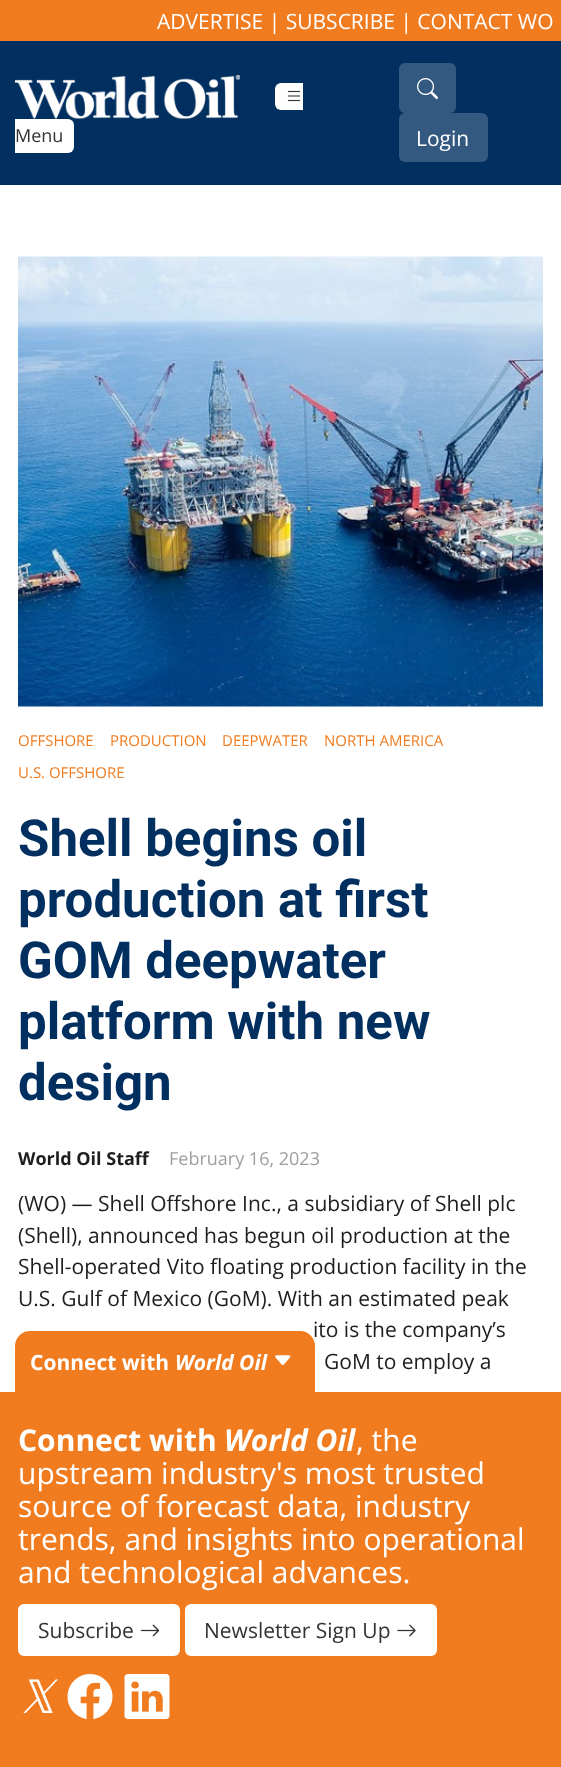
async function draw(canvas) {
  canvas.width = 561
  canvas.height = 1767
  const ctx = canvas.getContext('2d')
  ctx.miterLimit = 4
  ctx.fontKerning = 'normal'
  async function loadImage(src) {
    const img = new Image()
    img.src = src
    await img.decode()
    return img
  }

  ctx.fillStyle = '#fff'
  ctx.fillRect(0, 0, 561, 1767)
  ctx.fillStyle = '#f17c20'
  ctx.fillRect(0, 0, 561, 41)
  ctx.font = '21px Open Sans'
  ctx.fillStyle = '#fff'
  ctx.fillText('ADVERTISE | SUBSCRIBE | CONTACT WO', 157, 29)
  ctx.fillStyle = '#002f60'
  ctx.fillRect(0, 41, 561, 144)
  ctx.drawImage(await loadImage('image0.png'), 15, 75, 225, 44)
  ctx.fillStyle = '#fff'
  ctx.beginPath()
  ctx.roundRect(275, 83, 28, 27, [6, 0, 0, 6])
  ctx.fill()
  ctx.beginPath()
  ctx.roundRect(15, 119, 59, 34, [0, 6, 6, 0])
  ctx.fill()
  ctx.drawImage(await loadImage('image1.png'), 287, 90, 14, 12)
  ctx.font = '18px Open Sans'
  ctx.fillStyle = '#333'
  ctx.fillText('Menu', 15, 142)
  ctx.fillStyle = '#335980'
  ctx.beginPath()
  ctx.roundRect(399, 63, 57, 50, 6)
  ctx.fill()
  ctx.drawImage(await loadImage('image2.png'), 417, 78, 21, 21)
  ctx.beginPath()
  ctx.roundRect(399, 113, 89, 49, 6)
  ctx.fill()
  ctx.font = '21px Open Sans'
  ctx.fillStyle = '#fff'
  ctx.fillText('Login', 416, 146)
  ctx.drawImage(await loadImage('image3.png'), 18, 256, 525, 451)
  ctx.font = '15px Open Sans'
  ctx.fillStyle = '#f17c20'
  ctx.fillText('OFFSHORE', 18, 746)
  ctx.fillText('PRODUCTION', 110, 746)
  ctx.fillText('DEEPWATER', 222, 746)
  ctx.fillText('NORTH AMERICA', 324, 746)
  ctx.fillText('U.S. OFFSHORE', 18, 778)
  ctx.font = 'bold 51px Roboto'
  ctx.fillStyle = '#002f60'
  ctx.fillText('Shell begins oil', 18, 856)
  ctx.fillText('production at first', 18, 917)
  ctx.fillText('GOM deepwater', 18, 978)
  ctx.fillText('platform with new', 18, 1039)
  ctx.fillText('design', 18, 1100)
  ctx.font = 'bold 18px Open Sans'
  ctx.fillStyle = '#1e1e1e'
  ctx.fillText('World Oil Staff', 18, 1165)
  ctx.font = '18px Open Sans'
  ctx.fillStyle = '#9e9e9e'
  ctx.fillText('February 16, 2023', 169, 1165)
  ctx.font = '21px Open Sans'
  ctx.fillStyle = '#1e1e1e'
  ctx.fillText('(WO) — Shell Offshore Inc., a subsidiary of Shell plc', 18, 1211)
  ctx.fillText('(Shell), announced has begun oil production at the', 18, 1243)
  ctx.fillText('Shell-operated Vito floating production facility in the', 18, 1274)
  ctx.fillText('U.S. Gulf of Mexico (GoM). With an estimated peak', 18, 1306)
  ctx.fillText('ito is the company’s', 313, 1337)
  ctx.fillText('GoM to employ a', 324, 1369)
  ctx.fillStyle = '#f17c20'
  ctx.beginPath()
  ctx.roundRect(15, 1331, 300, 61, [15, 15, 0, 0])
  ctx.fill()
  ctx.font = 'bold 21px Open Sans'
  ctx.fillStyle = '#fff'
  ctx.fillText('Connect with', 30, 1370)
  ctx.font = 'italic bold 21px Open Sans'
  ctx.fillText('World Oil', 175, 1370)
  ctx.drawImage(await loadImage('image4.png'), 275, 1355, 16, 10)
  ctx.fillStyle = '#f17c20'
  ctx.fillRect(0, 1392, 561, 375)
  ctx.font = 'bold 30px Open Sans'
  ctx.fillStyle = '#fff'
  ctx.fillText('Connect with', 18, 1451)
  ctx.font = 'italic bold 30px Open Sans'
  ctx.fillText('World Oil', 224, 1451)
  ctx.font = '30px Open Sans'
  ctx.fillText(', the', 356, 1451)
  ctx.fillText('upstream industry\'s most trusted', 18, 1484)
  ctx.fillText('source of forecast data, industry', 18, 1517)
  ctx.fillText('trends, and insights into operational', 18, 1550)
  ctx.fillText('and technological advances.', 18, 1583)
  ctx.beginPath()
  ctx.roundRect(18, 1604, 162, 52, 6)
  ctx.fill()
  ctx.font = '21px Open Sans'
  ctx.fillStyle = '#333'
  ctx.fillText('Subscribe', 38, 1638)
  ctx.drawImage(await loadImage('image5.png'), 140, 1624, 20, 13)
  ctx.fillStyle = '#fff'
  ctx.beginPath()
  ctx.roundRect(185, 1604, 252, 52, 6)
  ctx.fill()
  ctx.fillStyle = '#333'
  ctx.fillText('Newsletter Sign Up', 204, 1638)
  ctx.drawImage(await loadImage('image6.png'), 397, 1624, 19, 13)
  ctx.font = 'italic 46px DejaVu Sans'
  ctx.fillStyle = '#fff'
  ctx.fillText('𝕏', 18, 1713)
  ctx.drawImage(await loadImage('image7.png'), 67, 1674, 46, 45)
  ctx.drawImage(await loadImage('image8.png'), 124, 1674, 46, 45)
}

draw(document.querySelector('canvas'))
